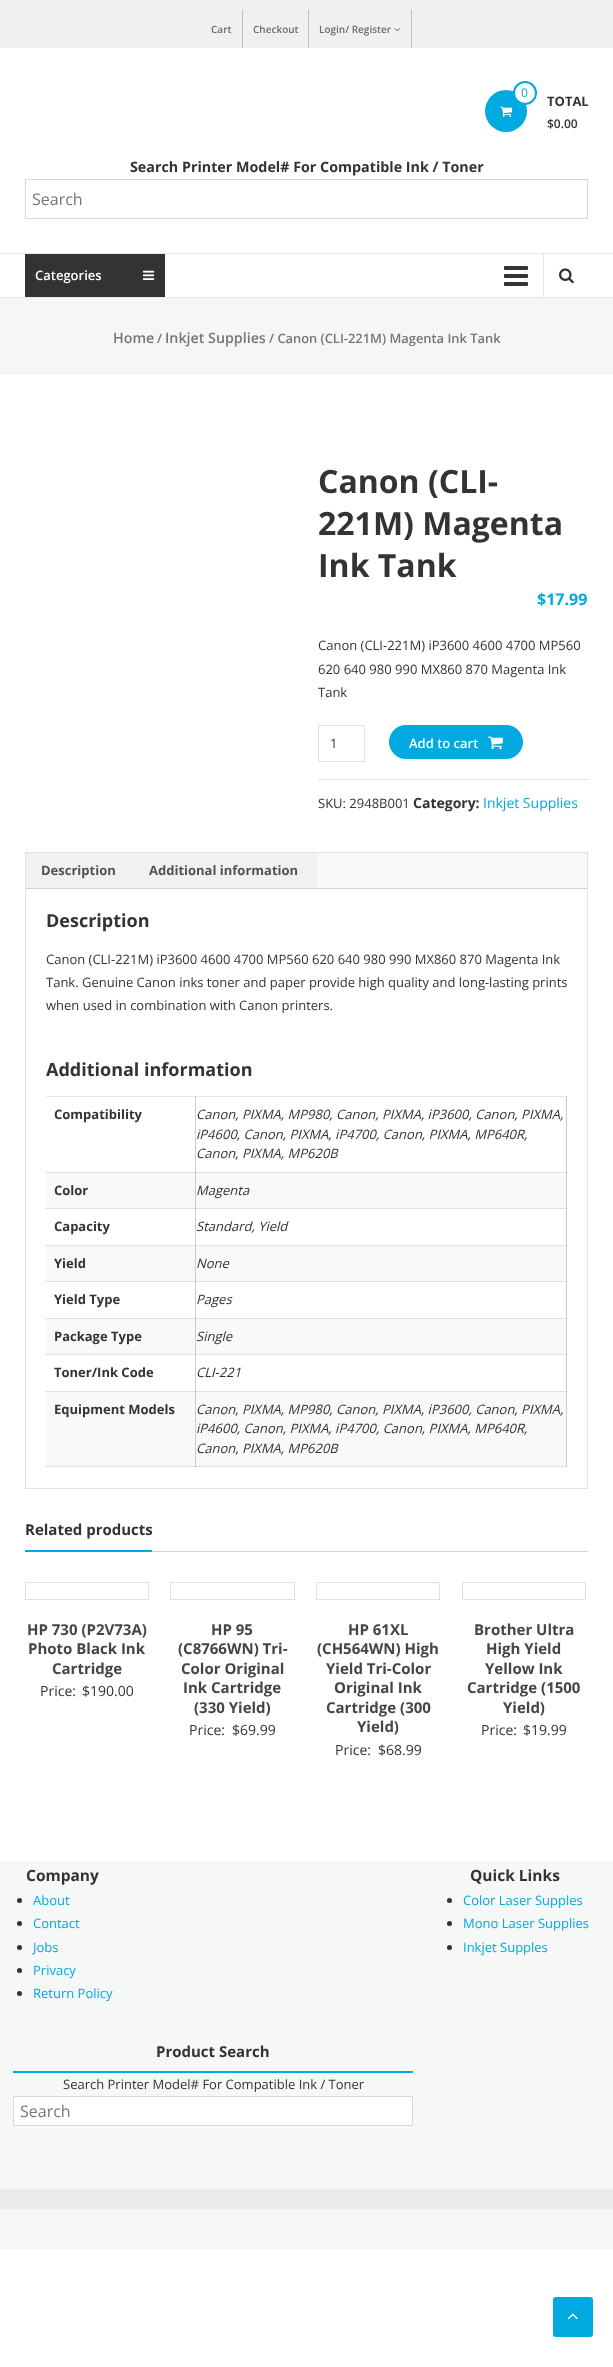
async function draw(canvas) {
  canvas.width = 613
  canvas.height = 2367
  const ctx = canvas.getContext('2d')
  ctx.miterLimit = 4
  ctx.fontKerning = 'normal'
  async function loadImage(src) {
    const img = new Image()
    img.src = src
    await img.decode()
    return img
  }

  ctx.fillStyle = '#fff'
  ctx.fillRect(0, 0, 613, 2367)
  ctx.fillStyle = '#e6e6e6'
  ctx.fillRect(45, 1172, 1, 1)
  ctx.fillRect(45, 1208, 1, 1)
  ctx.fillRect(45, 1245, 1, 1)
  ctx.fillRect(45, 1281, 1, 1)
  ctx.fillRect(45, 1318, 1, 1)
  ctx.fillRect(45, 1354, 1, 1)
  ctx.fillRect(45, 1391, 1, 1)
  ctx.fillRect(45, 1466, 1, 1)
  ctx.fillStyle = '#f0f0f0'
  ctx.fillRect(0, 0, 613, 48)
  ctx.fillStyle = '#c0bfbf'
  ctx.fillRect(242, 10, 1, 38)
  ctx.font = '600 10px Open Sans'
  ctx.fillStyle = '#6d6c6c'
  ctx.fillText('Cart', 211, 33)
  ctx.fillStyle = '#c0bfbf'
  ctx.fillRect(308, 10, 1, 38)
  ctx.fillStyle = '#6d6c6c'
  ctx.fillText('Checkout', 253, 33)
  ctx.fillStyle = '#c0bfbf'
  ctx.fillRect(411, 10, 1, 38)
  ctx.fillStyle = '#6d6c6c'
  ctx.fillText('Login/ Register', 319, 33)
  ctx.drawImage(await loadImage('image0.png'), 394, 28, 6, 4)
  ctx.fillStyle = '#00a9e0'
  ctx.beginPath()
  ctx.arc(506, 111, 21, 0, 2 * Math.PI)
  ctx.fill()
  ctx.fillStyle = '#fff'
  ctx.beginPath()
  ctx.arc(525, 93, 11, 0, 2 * Math.PI)
  ctx.fill()
  ctx.strokeStyle = '#00a9e0'
  ctx.lineWidth = 2
  ctx.stroke()
  ctx.font = '12px Open Sans'
  ctx.fillStyle = '#00a9e0'
  ctx.fillText('0', 521, 97)
  ctx.drawImage(await loadImage('image1.png'), 500, 106, 13, 11)
  ctx.font = 'bold 13px Open Sans'
  ctx.fillStyle = '#333'
  ctx.fillText('TOTAL', 547, 106)
  ctx.font = '600 12px Open Sans'
  ctx.fillText('$0.00', 547, 128)
  ctx.font = 'bold 14.3px Open Sans'
  ctx.fillText('Search Printer Model# For Compatible Ink / Toner', 130, 172)
  ctx.strokeStyle = '#d8d8d8'
  ctx.lineWidth = 1
  ctx.strokeRect(25.5, 179.5, 562, 39)
  ctx.font = '16px Open Sans'
  ctx.fillStyle = '#767676'
  ctx.fillText('Search', 32, 205)
  ctx.fillStyle = '#e5e5e5'
  ctx.fillRect(0, 253, 613, 1)
  ctx.fillRect(0, 297, 613, 1)
  ctx.fillStyle = '#333'
  ctx.fillRect(25, 254, 140, 43)
  ctx.font = '600 13px Open Sans'
  ctx.fillStyle = '#fff'
  ctx.fillText('Categories', 35, 280)
  ctx.drawImage(await loadImage('image2.png'), 143, 270, 12, 10)
  ctx.drawImage(await loadImage('image3.png'), 504, 266, 24, 20)
  ctx.fillStyle = '#e5e5e5'
  ctx.fillRect(543, 254, 1, 43)
  ctx.drawImage(await loadImage('image4.png'), 559, 268, 15, 16)
  ctx.fillStyle = '#f6f6f6'
  ctx.fillRect(0, 298, 613, 77)
  ctx.font = '600 14.25px Open Sans'
  ctx.fillStyle = '#767676'
  ctx.fillText('Home', 113, 343)
  ctx.font = '600 12.9px Open Sans'
  ctx.fillText('/', 157, 343)
  ctx.font = '600 14.25px Open Sans'
  ctx.fillText('Inkjet Supplies', 165, 343)
  ctx.font = '600 12.9px Open Sans'
  ctx.fillText('/ Canon (CLI-221M) Magenta Ink Tank', 269, 343)
  ctx.font = 'bold 32px Open Sans'
  ctx.fillStyle = '#333'
  ctx.fillText('Canon (CLI-', 318, 493)
  ctx.fillText('221M) Magenta', 318, 535)
  ctx.fillText('Ink Tank', 318, 577)
  ctx.font = 'bold 16px Open Sans'
  ctx.fillStyle = '#00a9e0'
  ctx.fillText('$17.99', 537, 605)
  ctx.font = '13px Open Sans'
  ctx.fillStyle = '#333'
  ctx.fillText('Canon (CLI-221M) iP3600 4600 4700 MP560', 318, 650)
  ctx.fillText('620 640 980 990 MX860 870 Magenta Ink', 318, 674)
  ctx.fillText('Tank', 318, 697)
  ctx.strokeStyle = '#e1e1e1'
  ctx.strokeRect(318.5, 725.5, 46, 36)
  ctx.fillText('1', 330, 748)
  ctx.fillStyle = '#00a9e0'
  ctx.beginPath()
  ctx.roundRect(389, 725, 134, 34, 17)
  ctx.fill()
  ctx.font = '600 13px Open Sans'
  ctx.fillStyle = '#fff'
  ctx.fillText('Add to cart', 409, 748)
  ctx.drawImage(await loadImage('image5.png'), 488, 736, 15, 14)
  ctx.fillStyle = '#e1e1e1'
  ctx.fillRect(318, 779, 270, 1)
  ctx.font = '13px Open Sans'
  ctx.fillStyle = '#333'
  ctx.fillText('SKU: 2948B001', 318, 808)
  ctx.font = 'bold 14px Open Sans'
  ctx.fillText('Category:', 413, 808)
  ctx.font = '14px Open Sans'
  ctx.fillStyle = '#00a9e0'
  ctx.fillText('Inkjet Supplies', 483, 808)
  ctx.strokeRect(25.5, 852.5, 562, 636)
  ctx.fillStyle = '#f9f9f9'
  ctx.fillRect(318, 853, 269, 35)
  ctx.fillStyle = '#f0f2f1'
  ctx.fillRect(26, 853, 292, 35)
  ctx.font = 'bold 13px Open Sans'
  ctx.fillStyle = '#515151'
  ctx.fillText('Description', 41, 875)
  ctx.fillText('Additional information', 149, 875)
  ctx.fillStyle = '#d3ced2'
  ctx.fillRect(26, 888, 561, 1)
  ctx.font = 'bold 18px Open Sans'
  ctx.fillStyle = '#333'
  ctx.fillText('Description', 46, 927)
  ctx.font = '13px Open Sans'
  ctx.fillText('Canon (CLI-221M) iP3600 4600 4700 MP560 620 640 980 990 MX860 870 Magenta Ink', 46, 964)
  ctx.fillText('Tank. Genuine Canon inks toner and paper provide high quality and long-lasting prints', 46, 987)
  ctx.fillText('when used in combination with Canon printers.', 46, 1010)
  ctx.font = 'bold 18px Open Sans'
  ctx.fillText('Additional information', 46, 1076)
  ctx.fillStyle = '#e6e6e6'
  ctx.fillRect(46, 1096, 521, 1)
  ctx.font = 'bold 13px Open Sans'
  ctx.fillStyle = '#333'
  ctx.fillText('Compatibility', 54, 1119)
  ctx.fillStyle = '#e0e0e0'
  ctx.fillRect(46, 1172, 521, 1)
  ctx.fillRect(46, 1208, 521, 1)
  ctx.fillRect(46, 1245, 521, 1)
  ctx.fillRect(46, 1281, 521, 1)
  ctx.fillRect(46, 1318, 521, 1)
  ctx.fillRect(46, 1354, 521, 1)
  ctx.fillRect(46, 1391, 521, 1)
  ctx.fillRect(46, 1466, 521, 1)
  ctx.fillStyle = '#ccc'
  ctx.fillRect(566, 1096, 1, 371)
  ctx.fillStyle = '#b8b8b8'
  ctx.fillRect(566, 1172, 1, 1)
  ctx.fillStyle = '#ccc'
  ctx.fillRect(195, 1096, 1, 371)
  ctx.fillStyle = '#b8b8b8'
  ctx.fillRect(195, 1172, 1, 1)
  ctx.font = 'italic 13px Open Sans'
  ctx.fillStyle = '#333'
  ctx.fillText('Canon, PIXMA, MP980, Canon, PIXMA, iP3600, Canon, PIXMA,', 196, 1119)
  ctx.fillText('iP4600, Canon, PIXMA, iP4700, Canon, PIXMA, MP640R,', 196, 1139)
  ctx.fillText('Canon, PIXMA, MP620B', 196, 1158)
  ctx.fillStyle = '#f9f9f9'
  ctx.fillRect(46, 1173, 149, 35)
  ctx.font = 'bold 13px Open Sans'
  ctx.fillStyle = '#333'
  ctx.fillText('Color', 54, 1195)
  ctx.fillStyle = '#f9f9f9'
  ctx.fillRect(196, 1173, 370, 35)
  ctx.fillStyle = '#b8b8b8'
  ctx.fillRect(566, 1208, 1, 1)
  ctx.fillRect(195, 1208, 1, 1)
  ctx.font = 'italic 13px Open Sans'
  ctx.fillStyle = '#333'
  ctx.fillText('Magenta', 196, 1195)
  ctx.font = 'bold 13px Open Sans'
  ctx.fillText('Capacity', 54, 1231)
  ctx.fillStyle = '#b8b8b8'
  ctx.fillRect(566, 1245, 1, 1)
  ctx.fillRect(195, 1245, 1, 1)
  ctx.font = 'italic 13px Open Sans'
  ctx.fillStyle = '#333'
  ctx.fillText('Standard, Yield', 196, 1231)
  ctx.fillStyle = '#f9f9f9'
  ctx.fillRect(46, 1246, 149, 35)
  ctx.font = 'bold 13px Open Sans'
  ctx.fillStyle = '#333'
  ctx.fillText('Yield', 54, 1268)
  ctx.fillStyle = '#f9f9f9'
  ctx.fillRect(196, 1246, 370, 35)
  ctx.fillStyle = '#b8b8b8'
  ctx.fillRect(566, 1281, 1, 1)
  ctx.fillRect(195, 1281, 1, 1)
  ctx.font = 'italic 13px Open Sans'
  ctx.fillStyle = '#333'
  ctx.fillText('None', 196, 1268)
  ctx.font = 'bold 13px Open Sans'
  ctx.fillText('Yield Type', 54, 1304)
  ctx.fillStyle = '#b8b8b8'
  ctx.fillRect(566, 1318, 1, 1)
  ctx.fillRect(195, 1318, 1, 1)
  ctx.font = 'italic 13px Open Sans'
  ctx.fillStyle = '#333'
  ctx.fillText('Pages', 196, 1304)
  ctx.fillStyle = '#f9f9f9'
  ctx.fillRect(46, 1319, 149, 35)
  ctx.font = 'bold 13px Open Sans'
  ctx.fillStyle = '#333'
  ctx.fillText('Package Type', 54, 1341)
  ctx.fillStyle = '#f9f9f9'
  ctx.fillRect(196, 1319, 370, 35)
  ctx.fillStyle = '#b8b8b8'
  ctx.fillRect(566, 1354, 1, 1)
  ctx.fillRect(195, 1354, 1, 1)
  ctx.font = 'italic 13px Open Sans'
  ctx.fillStyle = '#333'
  ctx.fillText('Single', 196, 1341)
  ctx.font = 'bold 13px Open Sans'
  ctx.fillText('Toner/Ink Code', 54, 1377)
  ctx.fillStyle = '#b8b8b8'
  ctx.fillRect(566, 1391, 1, 1)
  ctx.fillRect(195, 1391, 1, 1)
  ctx.font = 'italic 13px Open Sans'
  ctx.fillStyle = '#333'
  ctx.fillText('CLI-221', 196, 1377)
  ctx.fillStyle = '#f9f9f9'
  ctx.fillRect(46, 1392, 149, 74)
  ctx.font = 'bold 13px Open Sans'
  ctx.fillStyle = '#333'
  ctx.fillText('Equipment Models', 54, 1414)
  ctx.fillStyle = '#f9f9f9'
  ctx.fillRect(196, 1392, 370, 74)
  ctx.fillStyle = '#b8b8b8'
  ctx.fillRect(566, 1466, 1, 1)
  ctx.fillRect(195, 1466, 1, 1)
  ctx.font = 'italic 13px Open Sans'
  ctx.fillStyle = '#333'
  ctx.fillText('Canon, PIXMA, MP980, Canon, PIXMA, iP3600, Canon, PIXMA,', 196, 1414)
  ctx.fillText('iP4600, Canon, PIXMA, iP4700, Canon, PIXMA, MP640R,', 196, 1433)
  ctx.fillText('Canon, PIXMA, MP620B', 196, 1453)
  ctx.fillStyle = '#d6d6d6'
  ctx.fillRect(152, 1551, 436, 1)
  ctx.fillStyle = '#00a9e0'
  ctx.fillRect(25, 1550, 127, 2)
  ctx.font = 'bold 15px Open Sans'
  ctx.fillStyle = '#333'
  ctx.fillText('Related products', 25, 1535)
  ctx.strokeRect(25.5, 1582.5, 123, 17)
  ctx.fillStyle = '#454545'
  ctx.fillText('HP 730 (P2V73A)', 27, 1635)
  ctx.fillText('Photo Black Ink', 28, 1654)
  ctx.fillText('Cartridge', 52, 1674)
  ctx.font = '14px Open Sans'
  ctx.fillStyle = '#333'
  ctx.fillText('Price:', 40, 1696)
  ctx.fillText('$190.00', 82, 1696)
  ctx.strokeRect(170.5, 1582.5, 124, 17)
  ctx.font = 'bold 15px Open Sans'
  ctx.fillStyle = '#454545'
  ctx.fillText('HP 95', 211, 1635)
  ctx.fillText('(C8766WN) Tri-', 178, 1654)
  ctx.fillText('Color Original', 181, 1674)
  ctx.fillText('Ink Cartridge', 183, 1693)
  ctx.fillText('(330 Yield)', 194, 1713)
  ctx.font = '14px Open Sans'
  ctx.fillStyle = '#333'
  ctx.fillText('Price:', 189, 1735)
  ctx.fillText('$69.99', 232, 1735)
  ctx.strokeRect(316.5, 1582.5, 123, 17)
  ctx.font = 'bold 15px Open Sans'
  ctx.fillStyle = '#454545'
  ctx.fillText('HP 61XL', 348, 1635)
  ctx.fillText('(CH564WN) High', 317, 1654)
  ctx.fillText('Yield Tri-Color', 326, 1674)
  ctx.fillText('Original Ink', 334, 1693)
  ctx.fillText('Cartridge (300', 326, 1713)
  ctx.fillText('Yield)', 357, 1732)
  ctx.font = '14px Open Sans'
  ctx.fillStyle = '#333'
  ctx.fillText('Price:', 335, 1755)
  ctx.fillText('$68.99', 378, 1755)
  ctx.strokeRect(462.5, 1582.5, 123, 17)
  ctx.font = 'bold 15px Open Sans'
  ctx.fillStyle = '#454545'
  ctx.fillText('Brother Ultra', 474, 1635)
  ctx.fillText('High Yield', 486, 1654)
  ctx.fillText('Yellow Ink', 485, 1674)
  ctx.fillText('Cartridge (1500', 467, 1693)
  ctx.fillText('Yield)', 503, 1713)
  ctx.font = '14px Open Sans'
  ctx.fillStyle = '#333'
  ctx.fillText('Price:', 481, 1735)
  ctx.fillText('$19.99', 523, 1735)
  ctx.fillStyle = '#f6f7f7'
  ctx.fillRect(0, 1861, 613, 388)
  ctx.font = 'bold 15.5px Open Sans'
  ctx.fillStyle = '#333'
  ctx.fillText('Company', 26, 1881)
  ctx.beginPath()
  ctx.arc(19.5, 1900.5, 2.5, 0, 2 * Math.PI)
  ctx.fill()
  ctx.font = '13px Open Sans'
  ctx.fillStyle = '#00a9e0'
  ctx.fillText('About', 33, 1905)
  ctx.fillStyle = '#333'
  ctx.beginPath()
  ctx.arc(19.5, 1923.5, 2.5, 0, 2 * Math.PI)
  ctx.fill()
  ctx.fillStyle = '#00a9e0'
  ctx.fillText('Contact', 33, 1928)
  ctx.fillStyle = '#333'
  ctx.beginPath()
  ctx.arc(19.5, 1947.5, 2.5, 0, 2 * Math.PI)
  ctx.fill()
  ctx.fillStyle = '#00a9e0'
  ctx.fillText('Jobs', 33, 1952)
  ctx.fillStyle = '#333'
  ctx.beginPath()
  ctx.arc(19.5, 1970.5, 2.5, 0, 2 * Math.PI)
  ctx.fill()
  ctx.fillStyle = '#00a9e0'
  ctx.fillText('Privacy', 33, 1975)
  ctx.fillStyle = '#333'
  ctx.beginPath()
  ctx.arc(19.5, 1993.5, 2.5, 0, 2 * Math.PI)
  ctx.fill()
  ctx.fillStyle = '#00a9e0'
  ctx.fillText('Return Policy', 33, 1998)
  ctx.font = 'bold 15.5px Open Sans'
  ctx.fillStyle = '#333'
  ctx.fillText('Quick Links', 470, 1881)
  ctx.beginPath()
  ctx.arc(449.5, 1900.5, 2.5, 0, 2 * Math.PI)
  ctx.fill()
  ctx.font = '13px Open Sans'
  ctx.fillStyle = '#00a9e0'
  ctx.fillText('Color Laser Supples', 463, 1905)
  ctx.fillStyle = '#333'
  ctx.beginPath()
  ctx.arc(449.5, 1923.5, 2.5, 0, 2 * Math.PI)
  ctx.fill()
  ctx.fillStyle = '#00a9e0'
  ctx.fillText('Mono Laser Supplies', 463, 1928)
  ctx.fillStyle = '#333'
  ctx.beginPath()
  ctx.arc(449.5, 1947.5, 2.5, 0, 2 * Math.PI)
  ctx.fill()
  ctx.fillStyle = '#00a9e0'
  ctx.fillText('Inkjet Supples', 463, 1952)
  ctx.fillRect(13, 2071, 400, 2)
  ctx.font = 'bold 15px Open Sans'
  ctx.fillStyle = '#333'
  ctx.fillText('Product Search', 156, 2057)
  ctx.font = '13px Open Sans'
  ctx.fillText('Search Printer Model# For Compatible Ink / Toner', 63, 2089)
  ctx.fillStyle = '#fff'
  ctx.beginPath()
  ctx.rect(13.5, 2096.5, 399, 29)
  ctx.fill()
  ctx.strokeStyle = '#d8d8d8'
  ctx.stroke()
  ctx.font = '16px Open Sans'
  ctx.fillStyle = '#767676'
  ctx.fillText('Search', 20, 2117)
  ctx.fillStyle = '#e9ebeb'
  ctx.fillRect(0, 2189, 613, 20)
  ctx.fillStyle = '#00a9e0'
  ctx.beginPath()
  ctx.roundRect(553, 2297, 40, 40, 3)
  ctx.fill()
  ctx.drawImage(await loadImage('image6.png'), 567, 2313, 11, 7)
}

draw(document.querySelector('canvas'))
